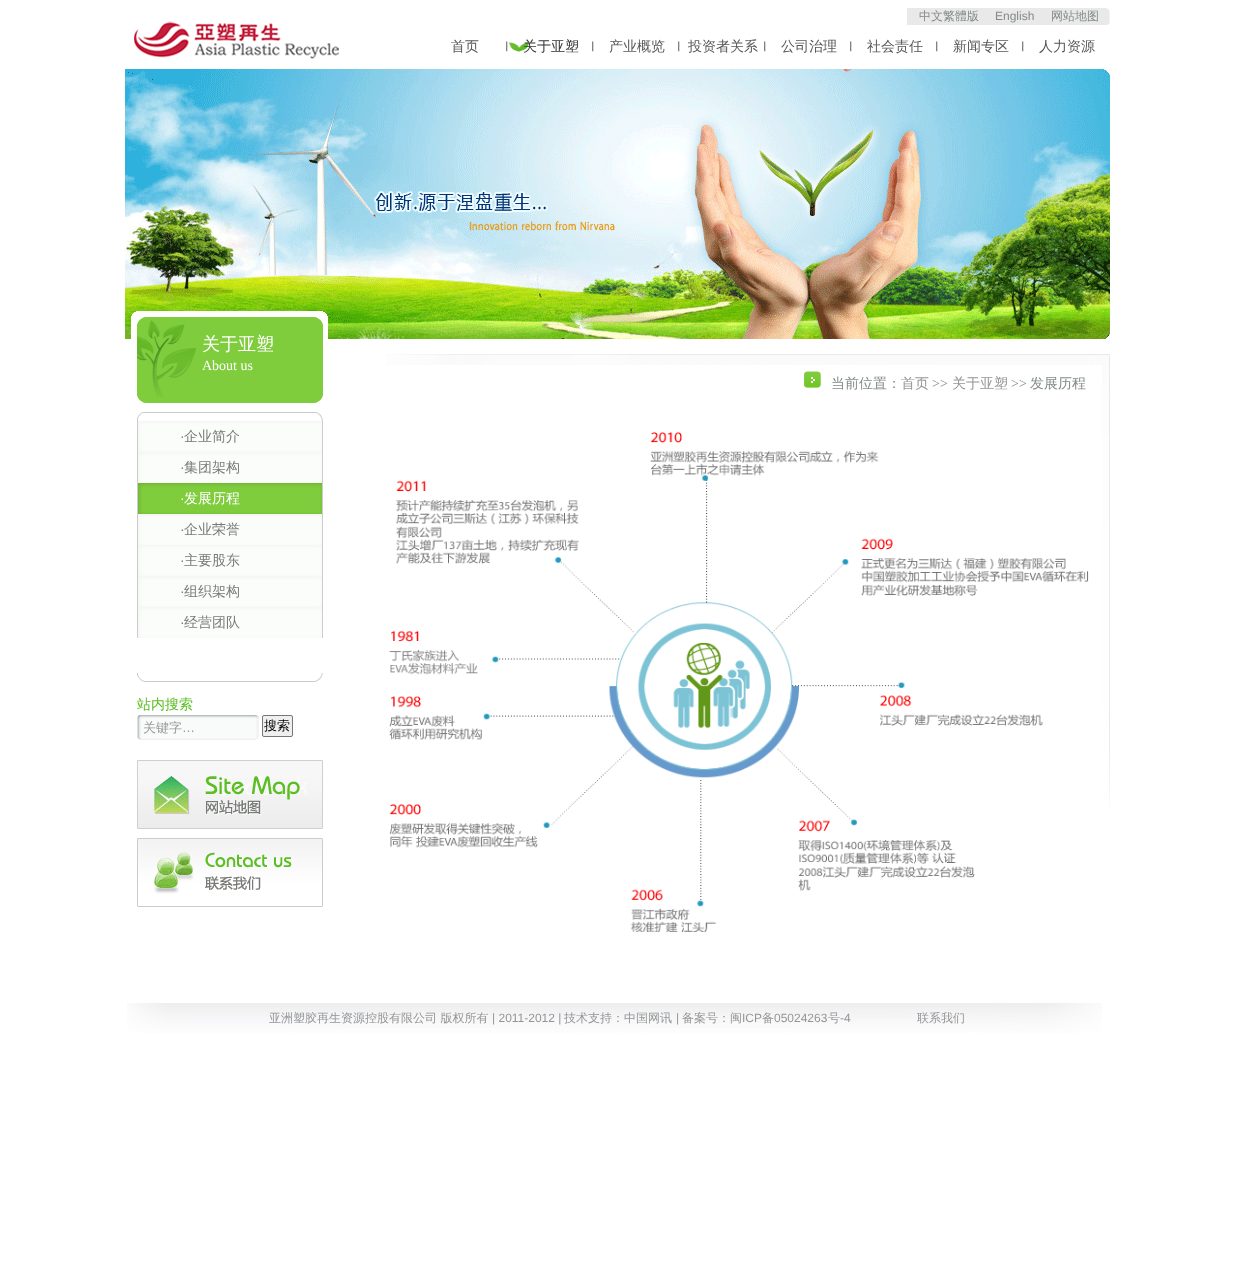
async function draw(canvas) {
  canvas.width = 1234
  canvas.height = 1275
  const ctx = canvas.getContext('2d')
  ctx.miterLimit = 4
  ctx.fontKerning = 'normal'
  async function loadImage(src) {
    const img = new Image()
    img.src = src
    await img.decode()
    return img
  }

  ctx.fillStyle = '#fff'
  ctx.fillRect(0, 0, 1234, 1275)
  ctx.drawImage(await loadImage('image0.png'), 134, 21, 205, 38)
  ctx.fillStyle = '#e9e9e9'
  ctx.fillRect(907, 8, 200, 17)
  ctx.font = '500 12px WenQuanYi Zen Hei'
  ctx.fillStyle = '#838b85'
  ctx.fillText('中文繁體版', 919, 20)
  ctx.font = '12px Liberation Sans'
  ctx.fillText('English', 995, 20)
  ctx.font = '500 12px WenQuanYi Zen Hei'
  ctx.fillText('网站地图', 1051, 20)
  ctx.drawImage(await loadImage('image1.png'), 1107, 8, 3, 17)
  ctx.drawImage(await loadImage('image2.png'), 506, 41, 2, 11)
  ctx.font = '500 14px WenQuanYi Zen Hei'
  ctx.fillStyle = '#58585a'
  ctx.fillText('首页', 451, 51)
  ctx.drawImage(await loadImage('image2.png'), 592, 41, 2, 11)
  ctx.drawImage(await loadImage('image3.png'), 508, 42, 21, 10)
  ctx.fillStyle = '#333'
  ctx.fillText('关于亚塑', 523, 51)
  ctx.drawImage(await loadImage('image2.png'), 678, 41, 2, 11)
  ctx.fillStyle = '#58585a'
  ctx.fillText('产业概览', 609, 51)
  ctx.drawImage(await loadImage('image2.png'), 764, 41, 2, 11)
  ctx.fillText('投资者关系', 688, 51)
  ctx.drawImage(await loadImage('image2.png'), 850, 41, 2, 11)
  ctx.fillText('公司治理', 781, 51)
  ctx.drawImage(await loadImage('image2.png'), 936, 41, 2, 11)
  ctx.fillText('社会责任', 867, 51)
  ctx.drawImage(await loadImage('image2.png'), 1022, 41, 2, 11)
  ctx.fillText('新闻专区', 953, 51)
  ctx.fillText('人力资源', 1039, 51)
  ctx.drawImage(await loadImage('image4.png'), 125, 69, 985, 270)
  ctx.drawImage(await loadImage('image5.png'), 131, 311, 197, 92)
  ctx.font = '500 18px WenQuanYi Zen Hei'
  ctx.fillStyle = '#fff'
  ctx.fillText('关于亚塑', 202, 350)
  ctx.font = '14px Liberation Serif'
  ctx.fillText('About us', 202, 370)
  ctx.drawImage(await loadImage('image6.png'), 137, 412, 186, 9)
  ctx.drawImage(await loadImage('image7.png'), 137, 421, 186, 31)
  ctx.font = '14px Liberation Sans'
  ctx.fillStyle = '#777a76'
  ctx.fillText('·', 180, 441)
  ctx.font = '500 14px WenQuanYi Zen Hei'
  ctx.fillText('企业简介', 184, 441)
  ctx.drawImage(await loadImage('image7.png'), 137, 452, 186, 31)
  ctx.font = '14px Liberation Sans'
  ctx.fillText('·', 180, 472)
  ctx.font = '500 14px WenQuanYi Zen Hei'
  ctx.fillText('集团架构', 184, 472)
  ctx.drawImage(await loadImage('image8.png'), 137, 483, 186, 31)
  ctx.font = '14px Liberation Sans'
  ctx.fillStyle = '#fff'
  ctx.fillText('·', 180, 503)
  ctx.font = '500 14px WenQuanYi Zen Hei'
  ctx.fillText('发展历程', 184, 503)
  ctx.drawImage(await loadImage('image7.png'), 137, 514, 186, 31)
  ctx.font = '14px Liberation Sans'
  ctx.fillStyle = '#777a76'
  ctx.fillText('·', 180, 534)
  ctx.font = '500 14px WenQuanYi Zen Hei'
  ctx.fillText('企业荣誉', 184, 534)
  ctx.drawImage(await loadImage('image7.png'), 137, 545, 186, 31)
  ctx.font = '14px Liberation Sans'
  ctx.fillText('·', 180, 565)
  ctx.font = '500 14px WenQuanYi Zen Hei'
  ctx.fillText('主要股东', 184, 565)
  ctx.drawImage(await loadImage('image7.png'), 137, 576, 186, 31)
  ctx.font = '14px Liberation Sans'
  ctx.fillText('·', 180, 596)
  ctx.font = '500 14px WenQuanYi Zen Hei'
  ctx.fillText('组织架构', 184, 596)
  ctx.drawImage(await loadImage('image7.png'), 137, 607, 186, 31)
  ctx.font = '14px Liberation Sans'
  ctx.fillText('·', 180, 627)
  ctx.font = '500 14px WenQuanYi Zen Hei'
  ctx.fillText('经营团队', 184, 627)
  ctx.drawImage(await loadImage('image9.png'), 137, 673, 186, 9)
  ctx.fillStyle = '#5bbe22'
  ctx.fillText('站内搜索', 137, 709)
  ctx.drawImage(await loadImage('image10.png'), 137, 715, 6, 25)
  ctx.drawImage(await loadImage('image11.png'), 143, 715, 110, 25)
  ctx.font = '500 13px WenQuanYi Zen Hei'
  ctx.fillStyle = '#999'
  ctx.fillText('关键字', 143, 732)
  ctx.font = '13px Liberation Sans'
  ctx.fillText('…', 182, 732)
  ctx.drawImage(await loadImage('image12.png'), 253, 715, 6, 25)
  ctx.fillStyle = '#efefef'
  ctx.beginPath()
  ctx.roundRect(262.5, 715.5, 30, 21, 1.5)
  ctx.fill()
  ctx.strokeStyle = '#767676'
  ctx.stroke()
  ctx.font = '500 13px WenQuanYi Zen Hei'
  ctx.fillStyle = '#000'
  ctx.fillText('搜索', 264, 730)
  ctx.drawImage(await loadImage('image13.png'), 137, 760, 186, 69)
  ctx.drawImage(await loadImage('image14.png'), 137, 838, 186, 69)
  ctx.drawImage(await loadImage('image15.png'), 386, 354, 724, 456)
  ctx.drawImage(await loadImage('image16.png'), 804, 371, 17, 17)
  ctx.font = '500 14px WenQuanYi Zen Hei'
  ctx.fillStyle = '#838b85'
  ctx.fillText('当前位置：', 831, 388)
  ctx.fillStyle = '#939598'
  ctx.fillText('首页', 901, 388)
  ctx.font = '14px Liberation Serif'
  ctx.fillStyle = '#838b85'
  ctx.fillText('>>', 932, 388)
  ctx.font = '500 14px WenQuanYi Zen Hei'
  ctx.fillStyle = '#939598'
  ctx.fillText('关于亚塑', 952, 388)
  ctx.font = '14px Liberation Serif'
  ctx.fillStyle = '#838b85'
  ctx.fillText('>>', 1011, 388)
  ctx.font = '500 14px WenQuanYi Zen Hei'
  ctx.fillText('发展历程', 1030, 388)
  ctx.drawImage(await loadImage('image17.png'), 389, 432, 700, 500)
  ctx.drawImage(await loadImage('image18.png'), 127, 1003, 975, 30)
  ctx.font = '500 12px WenQuanYi Zen Hei'
  ctx.fillStyle = '#939598'
  ctx.fillText('亚洲塑胶再生资源控股有限公司 版权所有', 269, 1022)
  ctx.font = '12px Liberation Sans'
  ctx.fillText('| 2011-2012 |', 492, 1022)
  ctx.font = '500 12px WenQuanYi Zen Hei'
  ctx.fillText('技术支持：中国网讯', 564, 1022)
  ctx.font = '12px Liberation Sans'
  ctx.fillText('|', 676, 1022)
  ctx.font = '500 12px WenQuanYi Zen Hei'
  ctx.fillText('备案号：闽', 682, 1022)
  ctx.font = '12px Liberation Sans'
  ctx.fillText('ICP', 742, 1022)
  ctx.font = '500 12px WenQuanYi Zen Hei'
  ctx.fillText('备', 762, 1022)
  ctx.font = '12px Liberation Sans'
  ctx.fillText('05024263', 774, 1022)
  ctx.font = '500 12px WenQuanYi Zen Hei'
  ctx.fillText('号', 828, 1022)
  ctx.font = '12px Liberation Sans'
  ctx.fillText('-4', 840, 1022)
  ctx.font = '500 12px WenQuanYi Zen Hei'
  ctx.fillText('联系我们', 917, 1022)
}

draw(document.querySelector('canvas'))
